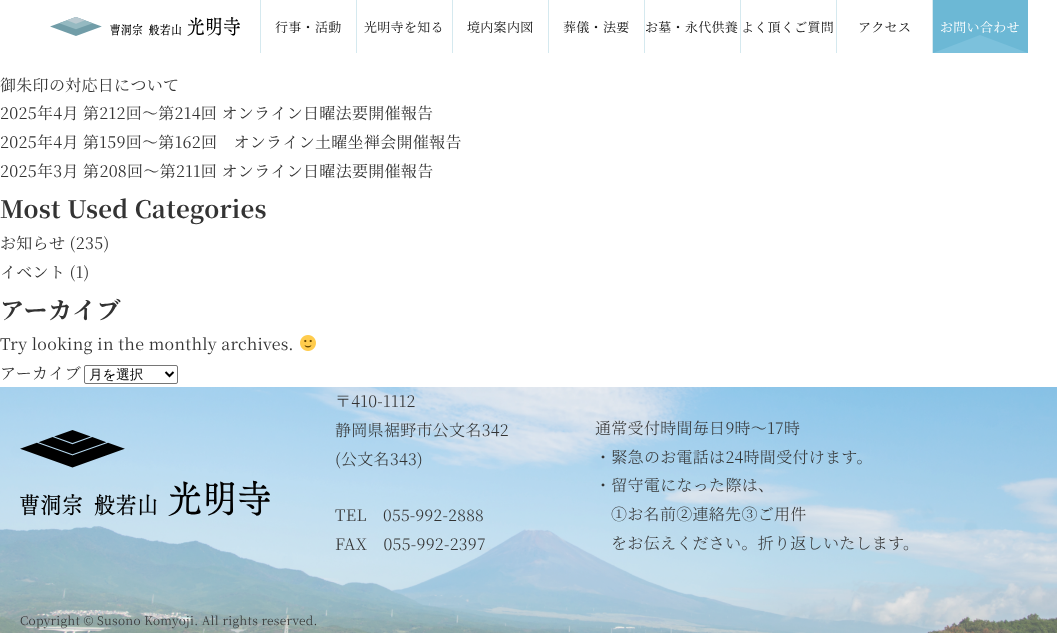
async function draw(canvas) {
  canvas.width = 1057
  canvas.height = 633
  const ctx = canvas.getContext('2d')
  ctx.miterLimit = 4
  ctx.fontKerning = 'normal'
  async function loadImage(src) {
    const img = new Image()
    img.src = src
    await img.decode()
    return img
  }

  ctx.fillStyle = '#fff'
  ctx.fillRect(0, 0, 1057, 633)
  ctx.drawImage(await loadImage('image0.png'), 50, 17, 190, 19)
  ctx.fillStyle = '#d5e9ef'
  ctx.fillRect(260, 0, 1, 53)
  ctx.letterSpacing = '0.3px'
  ctx.font = '13px Noto Serif JP'
  ctx.fillStyle = '#111'
  ctx.fillText('行事・活動', 275, 32)
  ctx.fillStyle = '#d5e9ef'
  ctx.fillRect(356, 0, 1, 53)
  ctx.fillStyle = '#111'
  ctx.fillText('光明寺を知る', 364, 32)
  ctx.fillStyle = '#d5e9ef'
  ctx.fillRect(452, 0, 1, 53)
  ctx.fillStyle = '#111'
  ctx.fillText('境内案内図', 467, 32)
  ctx.fillStyle = '#d5e9ef'
  ctx.fillRect(548, 0, 1, 53)
  ctx.fillStyle = '#111'
  ctx.fillText('葬儀・法要', 563, 32)
  ctx.fillStyle = '#d5e9ef'
  ctx.fillRect(644, 0, 1, 53)
  ctx.fillStyle = '#111'
  ctx.fillText('お墓・永代供養', 645, 32)
  ctx.fillStyle = '#d5e9ef'
  ctx.fillRect(740, 0, 1, 53)
  ctx.fillStyle = '#111'
  ctx.fillText('よく頂くご質問', 741, 32)
  ctx.fillStyle = '#d5e9ef'
  ctx.fillRect(836, 0, 1, 53)
  ctx.fillStyle = '#111'
  ctx.fillText('アクセス', 858, 32)
  ctx.fillStyle = '#6cb8d5'
  ctx.fillRect(933, 0, 95, 53)
  ctx.fillStyle = '#7cc1dc'
  ctx.beginPath()
  ctx.moveTo(980, 35)
  ctx.lineTo(933, 53)
  ctx.lineTo(1028, 53)
  ctx.closePath()
  ctx.fill()
  ctx.fillStyle = '#d5e9ef'
  ctx.fillRect(932, 0, 1, 53)
  ctx.fillStyle = '#fff'
  ctx.fillText('お問い合わせ', 940, 32)
  ctx.font = '16px Noto Serif JP'
  ctx.fillStyle = '#333'
  ctx.fillText('御朱印の対応日について', 0, 91)
  ctx.fillText('2025年4月 第212回〜第214回 オンライン日曜法要開催報告', 0, 119)
  ctx.fillText('2025年4月 第159回〜第162回　オンライン土曜坐禅会開催報告', 0, 148)
  ctx.fillText('2025年3月 第208回〜第211回 オンライン日曜法要開催報告', 0, 177)
  ctx.font = 'bold 24px Noto Serif JP'
  ctx.fillText('Most Used Categories', 0, 218)
  ctx.font = '16px Noto Serif JP'
  ctx.fillText('お知らせ (235)', 0, 249)
  ctx.fillText('イベント (1)', 0, 278)
  ctx.font = 'bold 24px Noto Serif JP'
  ctx.fillText('アーカイブ', 0, 319)
  ctx.font = '16px Noto Serif JP'
  ctx.fillText('Try looking in the monthly archives.', 0, 350)
  ctx.drawImage(await loadImage('image1.png'), 300, 335, 16, 16)
  ctx.fillText('アーカイブ', 0, 379)
  ctx.beginPath()
  ctx.roundRect(84.5, 365.5, 93, 18, 1.5)
  ctx.strokeStyle = '#767676'
  ctx.stroke()
  ctx.beginPath()
  ctx.moveTo(165.5, 372)
  ctx.lineTo(169.5, 376)
  ctx.lineTo(173.5, 372)
  ctx.strokeStyle = '#000'
  ctx.lineWidth = 2
  ctx.stroke()
  ctx.letterSpacing = '0px'
  ctx.font = '500 13.5px WenQuanYi Zen Hei'
  ctx.fillStyle = '#000'
  ctx.fillText('月を選択', 89, 379)
  ctx.drawImage(await loadImage('image2.png'), 0, 387, 1057, 246)
  ctx.drawImage(await loadImage('image3.png'), 20, 430, 250, 86)
  ctx.letterSpacing = '0.3px'
  ctx.font = '300 16px Noto Serif JP'
  ctx.fillStyle = '#333'
  ctx.fillText('〒410-1112', 335, 407)
  ctx.fillText('静岡県裾野市公文名342', 335, 436)
  ctx.fillText('(公文名343)', 335, 465)
  ctx.fillText('TEL', 335, 521)
  ctx.fillText('055-992-2888', 383, 521)
  ctx.fillText('FAX　055-992-2397', 335, 550)
  ctx.fillText('通常受付時間毎日9時〜17時', 595, 434)
  ctx.fillText('・緊急のお電話は24時間受付けます。', 595, 463)
  ctx.fillText('・留守電になった際は、', 595, 491)
  ctx.fillText('①お名前②連絡先③ご用件', 611, 520)
  ctx.fillText('をお伝えください。折り返しいたします。', 611, 549)
  ctx.font = '300 12px Noto Serif JP'
  ctx.fillText('Copyright © Susono Komyoji. All rights reserved.', 20, 625)
}

draw(document.querySelector('canvas'))
